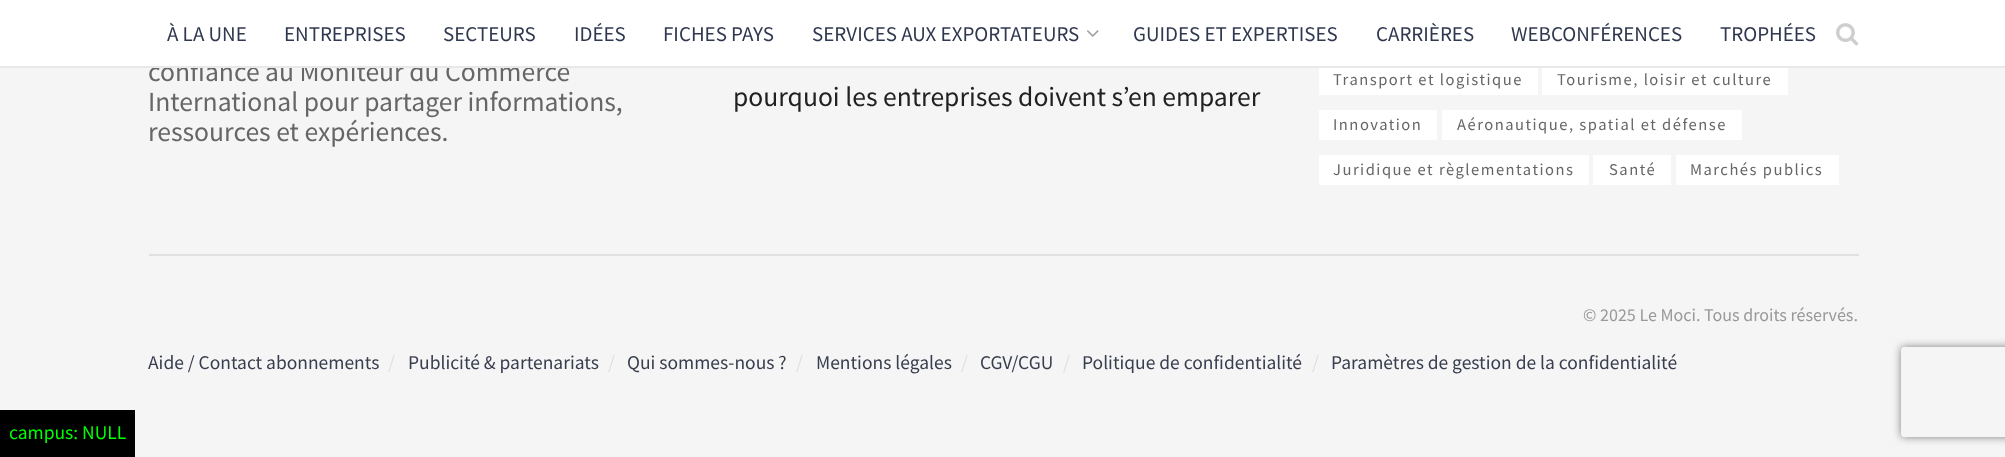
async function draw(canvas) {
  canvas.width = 2005
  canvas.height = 457
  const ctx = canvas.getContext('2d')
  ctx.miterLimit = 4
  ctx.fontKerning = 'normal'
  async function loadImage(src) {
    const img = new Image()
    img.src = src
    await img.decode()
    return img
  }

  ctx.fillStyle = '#f5f5f5'
  ctx.fillRect(0, 0, 2005, 457)
  ctx.font = '27.6px Source Sans Pro'
  ctx.fillStyle = '#666'
  ctx.fillText('confiance au Moniteur du Commerce', 148, 81)
  ctx.fillStyle = '#fff'
  ctx.fillRect(0, 0, 2005, 66)
  ctx.fillStyle = '#e8e8e8'
  ctx.fillRect(0, 66, 2005, 2)
  ctx.font = '21px Source Sans Pro'
  ctx.fillStyle = '#30384f'
  ctx.fillText('À LA UNE', 167, 41)
  ctx.fillText('ENTREPRISES', 284, 41)
  ctx.fillText('SECTEURS', 443, 41)
  ctx.fillText('IDÉES', 574, 41)
  ctx.fillText('FICHES PAYS', 663, 41)
  ctx.fillText('SERVICES AUX EXPORTATEURS', 812, 41)
  ctx.drawImage(await loadImage('image0.png'), 1087, 30, 12, 7)
  ctx.fillText('GUIDES ET EXPERTISES', 1133, 41)
  ctx.fillText('CARRIÈRES', 1376, 41)
  ctx.fillText('WEBCONFÉRENCES', 1511, 41)
  ctx.fillText('TROPHÉES', 1720, 41)
  ctx.drawImage(await loadImage('image1.png'), 1836, 23, 23, 23)
  ctx.font = '27.6px Source Sans Pro'
  ctx.fillStyle = '#666'
  ctx.fillText('International pour partager informations,', 148, 111)
  ctx.fillText('ressources et expériences.', 148, 141)
  ctx.fillStyle = '#212121'
  ctx.fillText('pourquoi les entreprises doivent s’en emparer', 733, 106)
  ctx.fillStyle = '#fff'
  ctx.fillRect(1319, 68, 219, 27)
  ctx.letterSpacing = '1.5px'
  ctx.font = '16.5px Source Sans Pro'
  ctx.fillStyle = '#666'
  ctx.fillText('Transport et logistique', 1333, 85)
  ctx.fillStyle = '#fff'
  ctx.fillRect(1542, 68, 246, 27)
  ctx.fillStyle = '#666'
  ctx.fillText('Tourisme, loisir et culture', 1557, 85)
  ctx.fillStyle = '#fff'
  ctx.fillRect(1319, 110, 118, 30)
  ctx.fillStyle = '#666'
  ctx.fillText('Innovation', 1333, 130)
  ctx.fillStyle = '#fff'
  ctx.fillRect(1442, 110, 300, 30)
  ctx.fillStyle = '#666'
  ctx.fillText('Aéronautique, spatial et défense', 1457, 130)
  ctx.fillStyle = '#fff'
  ctx.fillRect(1319, 155, 270, 30)
  ctx.fillStyle = '#666'
  ctx.fillText('Juridique et règlementations', 1333, 175)
  ctx.fillStyle = '#fff'
  ctx.fillRect(1593, 155, 78, 30)
  ctx.fillStyle = '#666'
  ctx.fillText('Santé', 1609, 175)
  ctx.fillStyle = '#fff'
  ctx.fillRect(1676, 155, 163, 30)
  ctx.fillStyle = '#666'
  ctx.fillText('Marchés publics', 1690, 175)
  ctx.fillStyle = '#e0e0e0'
  ctx.fillRect(149, 254, 1710, 2)
  ctx.letterSpacing = '0px'
  ctx.font = '18px Source Sans Pro'
  ctx.fillStyle = '#999'
  ctx.fillText('© 2025 Le Moci. Tous droits réservés.', 1583, 321)
  ctx.font = '19.5px Source Sans Pro'
  ctx.fillStyle = '#393e4f'
  ctx.fillText('Aide / Contact abonnements', 148, 369)
  ctx.fillStyle = '#e0e0e0'
  ctx.fillText('/', 388, 369)
  ctx.fillStyle = '#393e4f'
  ctx.fillText('Publicité & partenariats', 408, 369)
  ctx.fillStyle = '#e0e0e0'
  ctx.fillText('/', 608, 369)
  ctx.fillStyle = '#393e4f'
  ctx.fillText('Qui sommes-nous ?', 627, 369)
  ctx.fillStyle = '#e0e0e0'
  ctx.fillText('/', 796, 369)
  ctx.fillStyle = '#393e4f'
  ctx.fillText('Mentions légales', 816, 369)
  ctx.fillStyle = '#e0e0e0'
  ctx.fillText('/', 961, 369)
  ctx.fillStyle = '#393e4f'
  ctx.fillText('CGV/CGU', 980, 369)
  ctx.fillStyle = '#e0e0e0'
  ctx.fillText('/', 1063, 369)
  ctx.fillStyle = '#393e4f'
  ctx.fillText('Politique de confidentialité', 1082, 369)
  ctx.fillStyle = '#e0e0e0'
  ctx.fillText('/', 1312, 369)
  ctx.fillStyle = '#393e4f'
  ctx.fillText('Paramètres de gestion de la confidentialité', 1331, 369)
  ctx.fillStyle = '#000'
  ctx.fillRect(0, 410, 135, 47)
  ctx.fillStyle = '#0f0'
  ctx.fillText('campus: NULL', 9, 439)
  ctx.save()
  ctx.beginPath()
  ctx.moveTo(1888, 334)
  ctx.lineTo(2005, 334)
  ctx.lineTo(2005, 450)
  ctx.lineTo(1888, 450)
  ctx.closePath()
  ctx.moveTo(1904, 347)
  ctx.lineTo(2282, 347)
  ctx.bezierCurveTo(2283.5, 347, 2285, 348.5, 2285, 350)
  ctx.lineTo(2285, 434)
  ctx.bezierCurveTo(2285, 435.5, 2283.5, 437, 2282, 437)
  ctx.lineTo(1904, 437)
  ctx.bezierCurveTo(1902.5, 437, 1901, 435.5, 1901, 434)
  ctx.lineTo(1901, 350)
  ctx.bezierCurveTo(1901, 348.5, 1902.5, 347, 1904, 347)
  ctx.closePath()
  ctx.clip('evenodd')
  ctx.fillStyle = '#808080'
  ctx.filter = 'blur(4px)'
  ctx.beginPath()
  ctx.roundRect(1901, 347, 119, 90, 3)
  ctx.fill()
  ctx.filter = 'none'
  ctx.restore()
}

draw(document.querySelector('canvas'))
